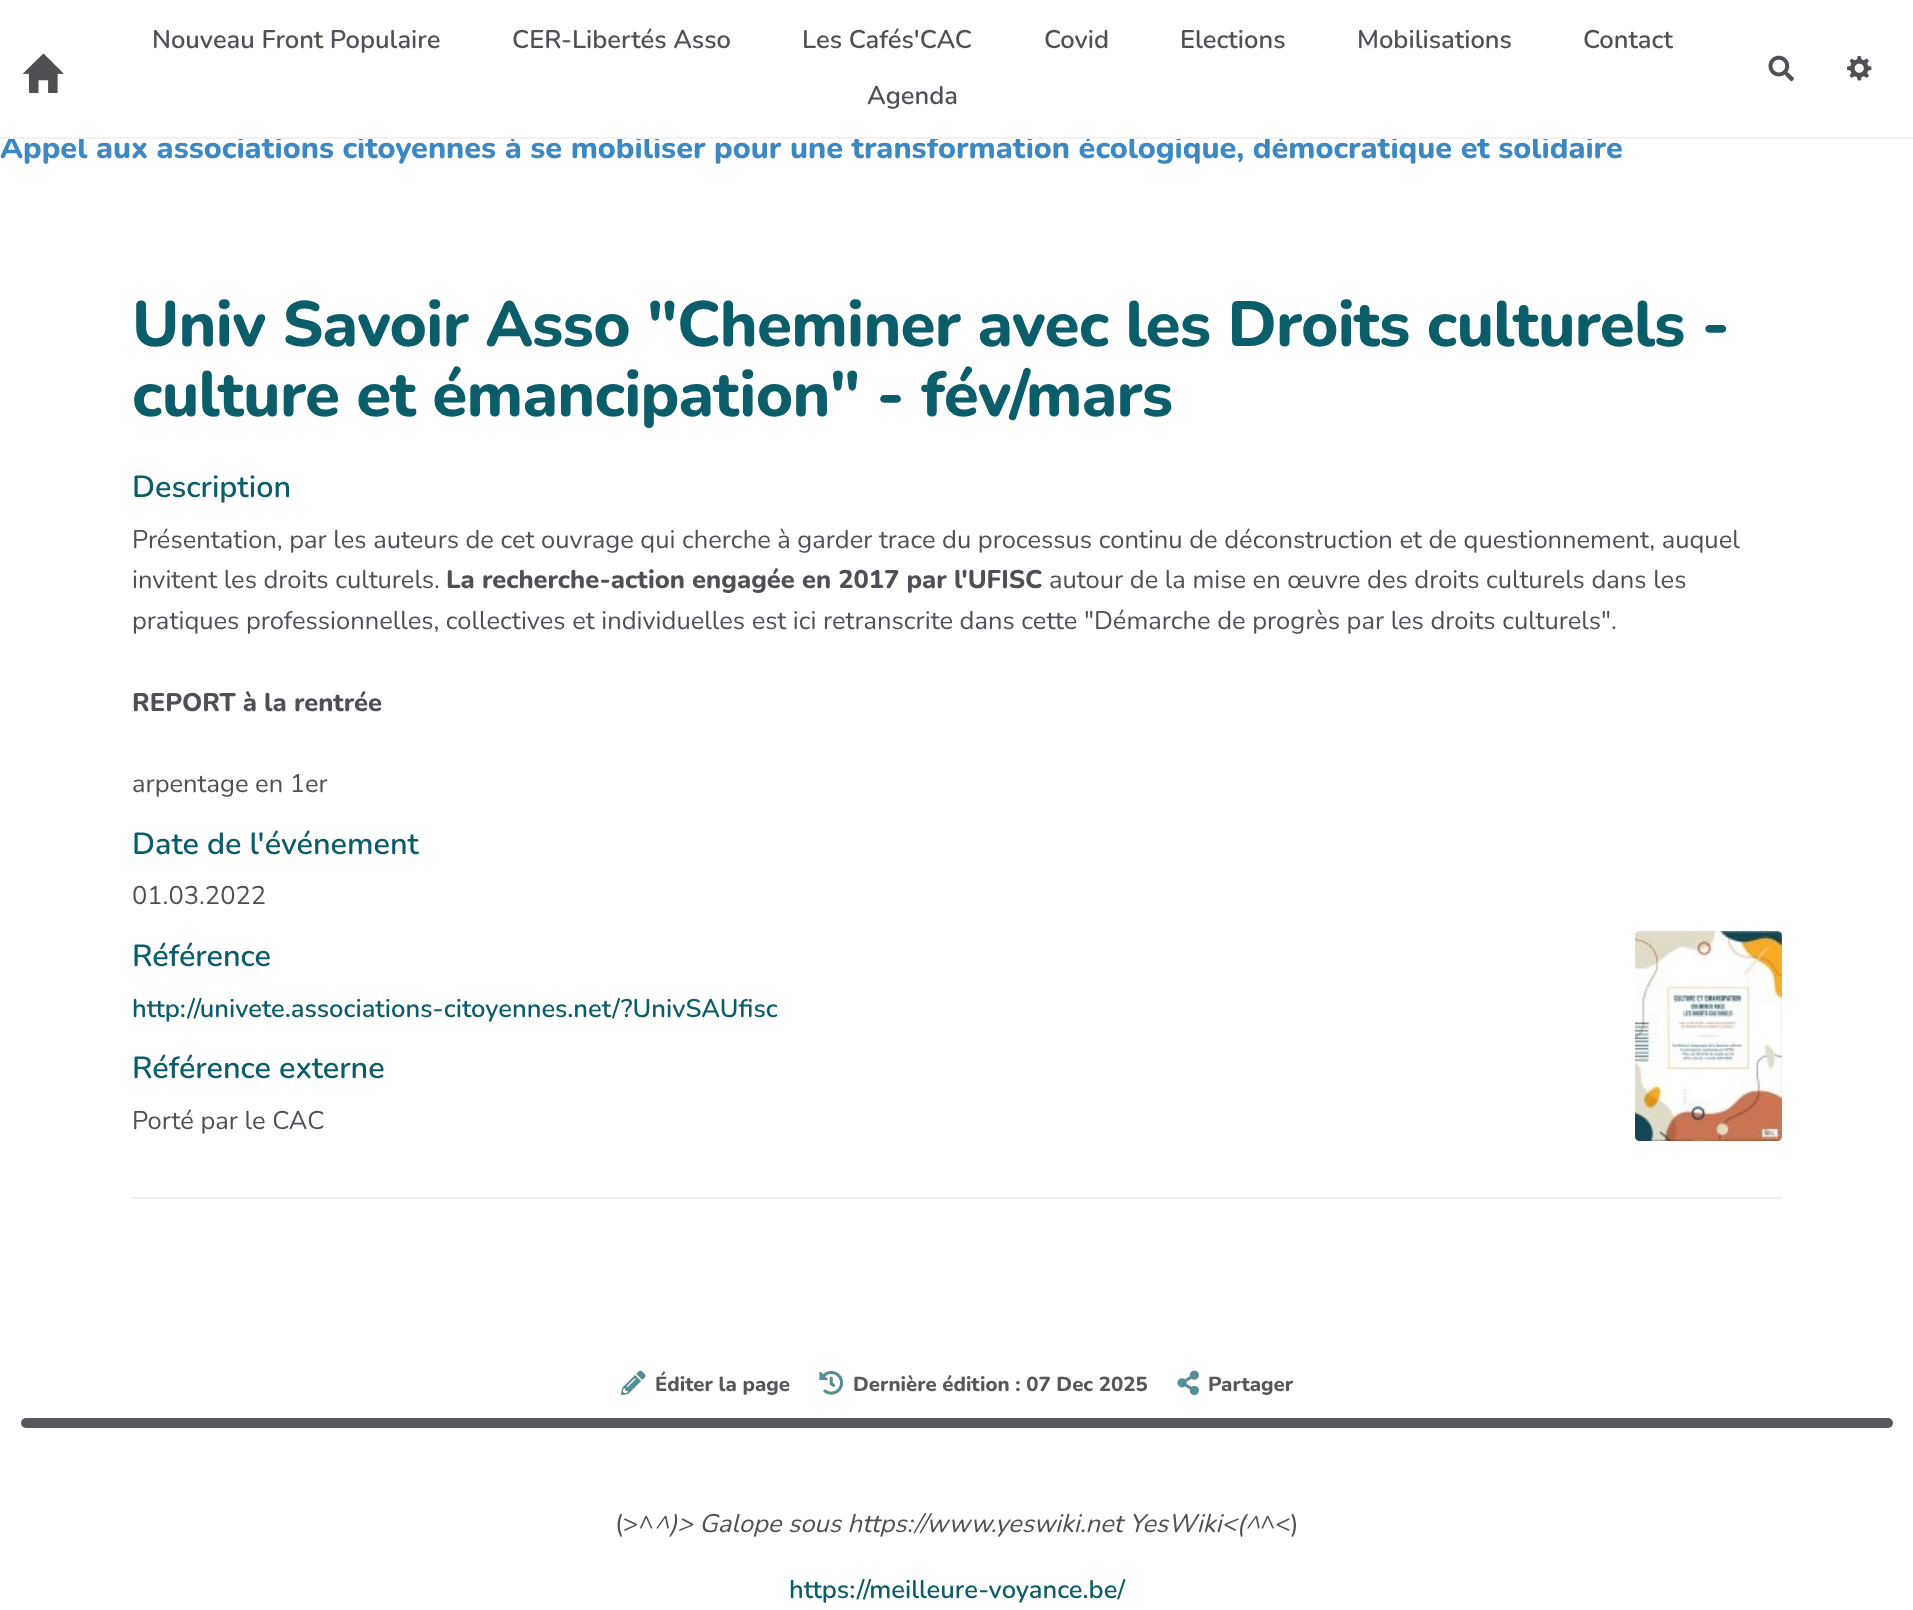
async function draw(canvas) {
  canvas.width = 1913
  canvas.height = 1610
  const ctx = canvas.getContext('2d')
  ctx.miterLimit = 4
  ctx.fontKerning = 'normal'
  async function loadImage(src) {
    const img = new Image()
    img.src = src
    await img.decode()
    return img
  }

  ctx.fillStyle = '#fff'
  ctx.fillRect(0, 0, 1913, 1610)
  ctx.font = '800 30.6px Nunito'
  ctx.fillStyle = '#3b88c3'
  ctx.fillText('Appel aux associations citoyennes à se mobiliser pour une transformation écologique, démocratique et solidaire', 0, 158)
  ctx.fillStyle = '#fff'
  ctx.fillRect(9, 134, 1583, 3)
  ctx.fillStyle = '#f2f2f2'
  ctx.fillRect(0, 137, 1913, 2)
  ctx.drawImage(await loadImage('image0.png'), 23, 53, 41, 40)
  ctx.font = '600 25.5px Nunito'
  ctx.fillStyle = '#4e5056'
  ctx.fillText('Nouveau Front Populaire', 152, 48)
  ctx.fillText('CER-Libertés Asso', 512, 48)
  ctx.fillText('Les Cafés\'CAC', 802, 48)
  ctx.fillText('Covid', 1044, 48)
  ctx.fillText('Elections', 1180, 48)
  ctx.fillText('Mobilisations', 1357, 48)
  ctx.fillText('Contact', 1583, 48)
  ctx.fillText('Agenda', 867, 104)
  ctx.drawImage(await loadImage('image1.png'), 1768, 55, 26, 27)
  ctx.drawImage(await loadImage('image2.png'), 1847, 56, 25, 25)
  ctx.letterSpacing = '-0.75px'
  ctx.font = '800 63.75px Nunito'
  ctx.fillStyle = '#0c5d6a'
  ctx.fillText('Univ Savoir Asso "Cheminer avec les Droits culturels -', 132, 346)
  ctx.fillText('culture et émancipation" - fév/mars', 132, 416)
  ctx.letterSpacing = '0px'
  ctx.font = '600 30.6px Nunito'
  ctx.fillText('Description', 132, 497)
  ctx.font = '25.5px Nunito'
  ctx.fillStyle = '#4e5056'
  ctx.fillText('Présentation, par les auteurs de cet ouvrage qui cherche à garder trace du processus continu de déconstruction et de questionnement, auquel', 132, 548)
  ctx.fillText('invitent les droits culturels.', 132, 588)
  ctx.font = '800 25.5px Nunito'
  ctx.fillText('La recherche-action engagée en 2017 par l\'UFISC', 446, 588)
  ctx.font = '25.5px Nunito'
  ctx.fillText('autour de la mise en œuvre des droits culturels dans les', 1049, 588)
  ctx.fillText('pratiques professionnelles, collectives et individuelles est ici retranscrite dans cette "Démarche de progrès par les droits culturels".', 132, 629)
  ctx.font = '800 25.5px Nunito'
  ctx.fillText('REPORT à la rentrée', 132, 711)
  ctx.font = '25.5px Nunito'
  ctx.fillText('arpentage en 1er', 132, 792)
  ctx.font = '600 30.6px Nunito'
  ctx.fillStyle = '#0c5d6a'
  ctx.fillText('Date de l\'événement', 132, 854)
  ctx.font = '25.5px Nunito'
  ctx.fillStyle = '#4e5056'
  ctx.fillText('01.03.2022', 132, 904)
  ctx.font = '600 30.6px Nunito'
  ctx.fillStyle = '#0c5d6a'
  ctx.fillText('Référence', 132, 966)
  ctx.font = '600 25.5px Nunito'
  ctx.fillText('http://univete.associations-citoyennes.net/?UnivSAUfisc', 132, 1017)
  ctx.drawImage(await loadImage('image3.png'), 1635, 931, 147, 210)
  ctx.font = '600 30.6px Nunito'
  ctx.fillText('Référence externe', 132, 1078)
  ctx.font = '25.5px Nunito'
  ctx.fillStyle = '#4e5056'
  ctx.fillText('Porté par le CAC', 132, 1129)
  ctx.fillStyle = '#f1f1f1'
  ctx.fillRect(132, 1197, 1650, 2)
  ctx.drawImage(await loadImage('image4.png'), 621, 1370, 25, 26)
  ctx.font = '800 20.4px Nunito'
  ctx.fillStyle = '#57575c'
  ctx.fillText('Éditer la page', 655, 1391)
  ctx.drawImage(await loadImage('image5.png'), 819, 1371, 25, 24)
  ctx.fillText('Dernière édition : 07 Dec 2025', 853, 1391)
  ctx.drawImage(await loadImage('image6.png'), 1177, 1370, 22, 26)
  ctx.fillText('Partager', 1208, 1391)
  ctx.beginPath()
  ctx.roundRect(21, 1418, 1872, 10, 5)
  ctx.fill()
  ctx.font = '25.5px Nunito'
  ctx.fillStyle = '#4e5056'
  ctx.fillText('(>^', 615, 1532)
  ctx.font = 'italic 25.5px Nunito'
  ctx.fillText('^)> Galope sous https://www.yeswiki.net YesWiki<(^', 654, 1532)
  ctx.font = '25.5px Nunito'
  ctx.fillText('^<)', 1260, 1532)
  ctx.font = '600 25.5px Nunito'
  ctx.fillStyle = '#0c5d6a'
  ctx.fillText('https://meilleure-voyance.be/', 789, 1598)
}

draw(document.querySelector('canvas'))
